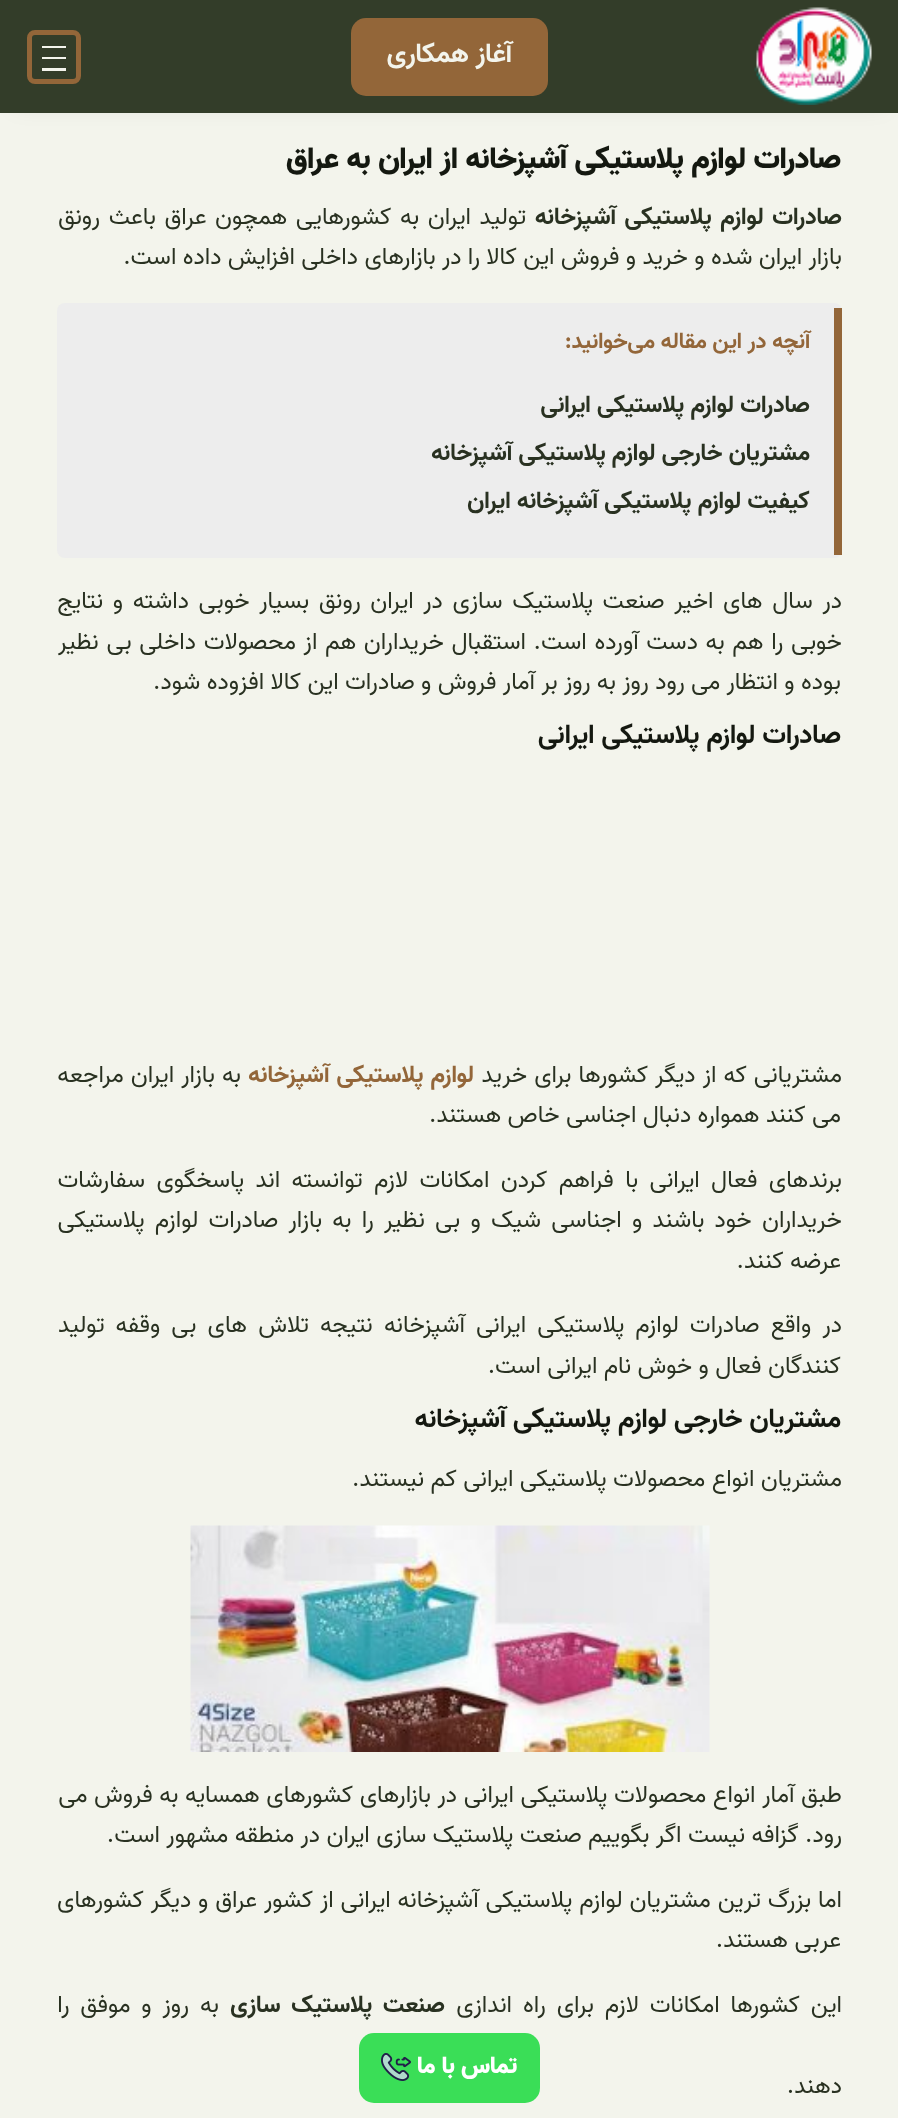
async function draw(canvas) {
  canvas.width = 898
  canvas.height = 2118
  const ctx = canvas.getContext('2d')
  ctx.miterLimit = 4
  ctx.fontKerning = 'normal'
  async function loadImage(src) {
    const img = new Image()
    img.src = src
    await img.decode()
    return img
  }

  ctx.fillStyle = '#f3f4ec'
  ctx.fillRect(0, 0, 898, 2118)
  ctx.fillStyle = '#0000001a'
  ctx.filter = 'blur(11px)'
  ctx.beginPath()
  ctx.rect(15, 23, 869, 82)
  ctx.fill()
  ctx.filter = 'none'
  ctx.fillStyle = '#333d29'
  ctx.fillRect(0, 0, 898, 113)
  ctx.drawImage(await loadImage('image0.png'), 754, 7, 118, 98)
  ctx.fillStyle = '#936639'
  ctx.beginPath()
  ctx.roundRect(351, 18, 197, 78, 15)
  ctx.fill()
  ctx.direction = 'rtl'
  ctx.font = 'bold 27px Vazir'
  ctx.fillStyle = '#f3f4ec'
  ctx.fillText('آغاز همکاری', 512, 62)
  ctx.beginPath()
  ctx.roundRect(29.5, 32.5, 49, 49, 5.5)
  ctx.strokeStyle = '#936639'
  ctx.lineWidth = 5
  ctx.stroke()
  ctx.fillRect(42, 46, 24, 2)
  ctx.fillRect(42, 57, 24, 2)
  ctx.fillRect(42, 68, 24, 3)
  ctx.font = '900 30px Vazir'
  ctx.fillStyle = '#141810'
  ctx.fillText('صادرات لوازم پلاستیکی آشپزخانه از ایران به عراق', 841, 168)
  ctx.wordSpacing = '2.25px'
  ctx.font = 'bold 24px Vazir'
  ctx.fillStyle = '#293121'
  ctx.fillText('صادرات لوازم پلاستیکی آشپزخانه', 842, 224)
  ctx.font = '24px Vazir'
  ctx.fillText('تولید ایران به کشورهایی همچون عراق باعث رونق', 526, 224)
  ctx.wordSpacing = '0px'
  ctx.fillText('بازار ایران شده و خرید و فروش این کالا را در بازارهای داخلی افزایش داده است.', 842, 264)
  ctx.fillStyle = '#ededed'
  ctx.beginPath()
  ctx.roundRect(57, 303, 785, 255, 8)
  ctx.fill()
  ctx.fillStyle = '#936639'
  ctx.fillRect(834, 308, 8, 247)
  ctx.font = 'bold 22.5px Vazir'
  ctx.fillText('آنچه در این مقاله می‌خوانید:', 810, 348)
  ctx.font = 'bold 24px Vazir'
  ctx.fillStyle = '#293121'
  ctx.fillText('صادرات لوازم پلاستیکی ایرانی', 810, 412)
  ctx.fillText('مشتریان خارجی لوازم پلاستیکی آشپزخانه', 810, 460)
  ctx.fillText('کیفیت لوازم پلاستیکی آشپزخانه ایران', 810, 508)
  ctx.wordSpacing = '3.25px'
  ctx.font = '24px Vazir'
  ctx.fillText('در سال های اخیر صنعت پلاستیک سازی در ایران رونق بسیار خوبی داشته و نتایج', 842, 608)
  ctx.wordSpacing = '1.3px'
  ctx.fillText('خوبی را هم به دست آورده است. استقبال خریداران هم از محصولات داخلی بی نظیر', 842, 649)
  ctx.wordSpacing = '0px'
  ctx.fillText('بوده و انتظار می رود روز به روز بر آمار فروش و صادرات این کالا افزوده شود.', 841, 689)
  ctx.font = 'bold 27px Vazir'
  ctx.fillStyle = '#141810'
  ctx.fillText('صادرات لوازم پلاستیکی ایرانی', 841, 743)
  ctx.wordSpacing = '0.75px'
  ctx.font = '24px Vazir'
  ctx.fillStyle = '#293121'
  ctx.fillText('مشتریانی که از دیگر کشورها برای خرید', 842, 1082)
  ctx.font = 'bold 24px Vazir'
  ctx.fillStyle = '#936639'
  ctx.fillText('لوازم پلاستیکی آشپزخانه', 474, 1082)
  ctx.font = '24px Vazir'
  ctx.fillStyle = '#293121'
  ctx.fillText('به بازار ایران مراجعه', 241, 1082)
  ctx.wordSpacing = '0px'
  ctx.fillText('می کنند همواره دنبال اجناسی خاص هستند.', 841, 1122)
  ctx.wordSpacing = '5px'
  ctx.fillText('برندهای فعال ایرانی با فراهم کردن امکانات لازم توانسته اند پاسخگوی سفارشات', 842, 1187)
  ctx.wordSpacing = '3.9px'
  ctx.fillText('خریداران خود باشند و اجناسی شیک و بی نظیر را به بازار صادرات لوازم پلاستیکی', 842, 1227)
  ctx.wordSpacing = '0px'
  ctx.fillText('عرضه کنند.', 841, 1268)
  ctx.wordSpacing = '4.75px'
  ctx.fillText('در واقع صادرات لوازم پلاستیکی ایرانی آشپزخانه نتیجه تلاش های بی وقفه تولید', 842, 1332)
  ctx.wordSpacing = '0px'
  ctx.fillText('کنندگان فعال و خوش نام ایرانی است.', 841, 1373)
  ctx.font = 'bold 27px Vazir'
  ctx.fillStyle = '#141810'
  ctx.fillText('مشتریان خارجی لوازم پلاستیکی آشپزخانه', 841, 1427)
  ctx.font = '24px Vazir'
  ctx.fillStyle = '#293121'
  ctx.fillText('مشتریان انواع محصولات پلاستیکی ایرانی کم نیستند.', 842, 1486)
  ctx.drawImage(await loadImage('image1.png'), 190, 1525, 520, 227)
  ctx.wordSpacing = '0.25px'
  ctx.fillText('طبق آمار انواع محصولات پلاستیکی ایرانی در بازارهای کشورهای همسایه به فروش می', 842, 1802)
  ctx.wordSpacing = '0px'
  ctx.fillText('رود. گزافه نیست اگر بگوییم صنعت پلاستیک سازی ایران در منطقه مشهور است.', 842, 1842)
  ctx.wordSpacing = '0.5px'
  ctx.fillText('اما بزرگ ترین مشتریان لوازم پلاستیکی آشپزخانه ایرانی از کشور عراق و دیگر کشورهای', 842, 1907)
  ctx.wordSpacing = '0px'
  ctx.fillText('عربی هستند.', 841, 1947)
  ctx.wordSpacing = '4.5px'
  ctx.fillText('این کشورها امکانات لازم برای راه اندازی', 842, 2012)
  ctx.font = 'bold 24px Vazir'
  ctx.fillText('صنعت پلاستیک سازی', 445, 2012)
  ctx.font = '24px Vazir'
  ctx.fillText('به روز و موفق را', 219, 2012)
  ctx.wordSpacing = '0px'
  ctx.fillText('دهند.', 842, 2093)
  ctx.fillStyle = '#3ade57'
  ctx.beginPath()
  ctx.roundRect(359, 2033, 181, 70, 15)
  ctx.fill()
  ctx.font = '900 24px Vazir'
  ctx.fillStyle = '#fff'
  ctx.fillText('تماس با ما', 517, 2073)
  ctx.drawImage(await loadImage('image2.png'), 381, 2053, 30, 28)
}

draw(document.querySelector('canvas'))
